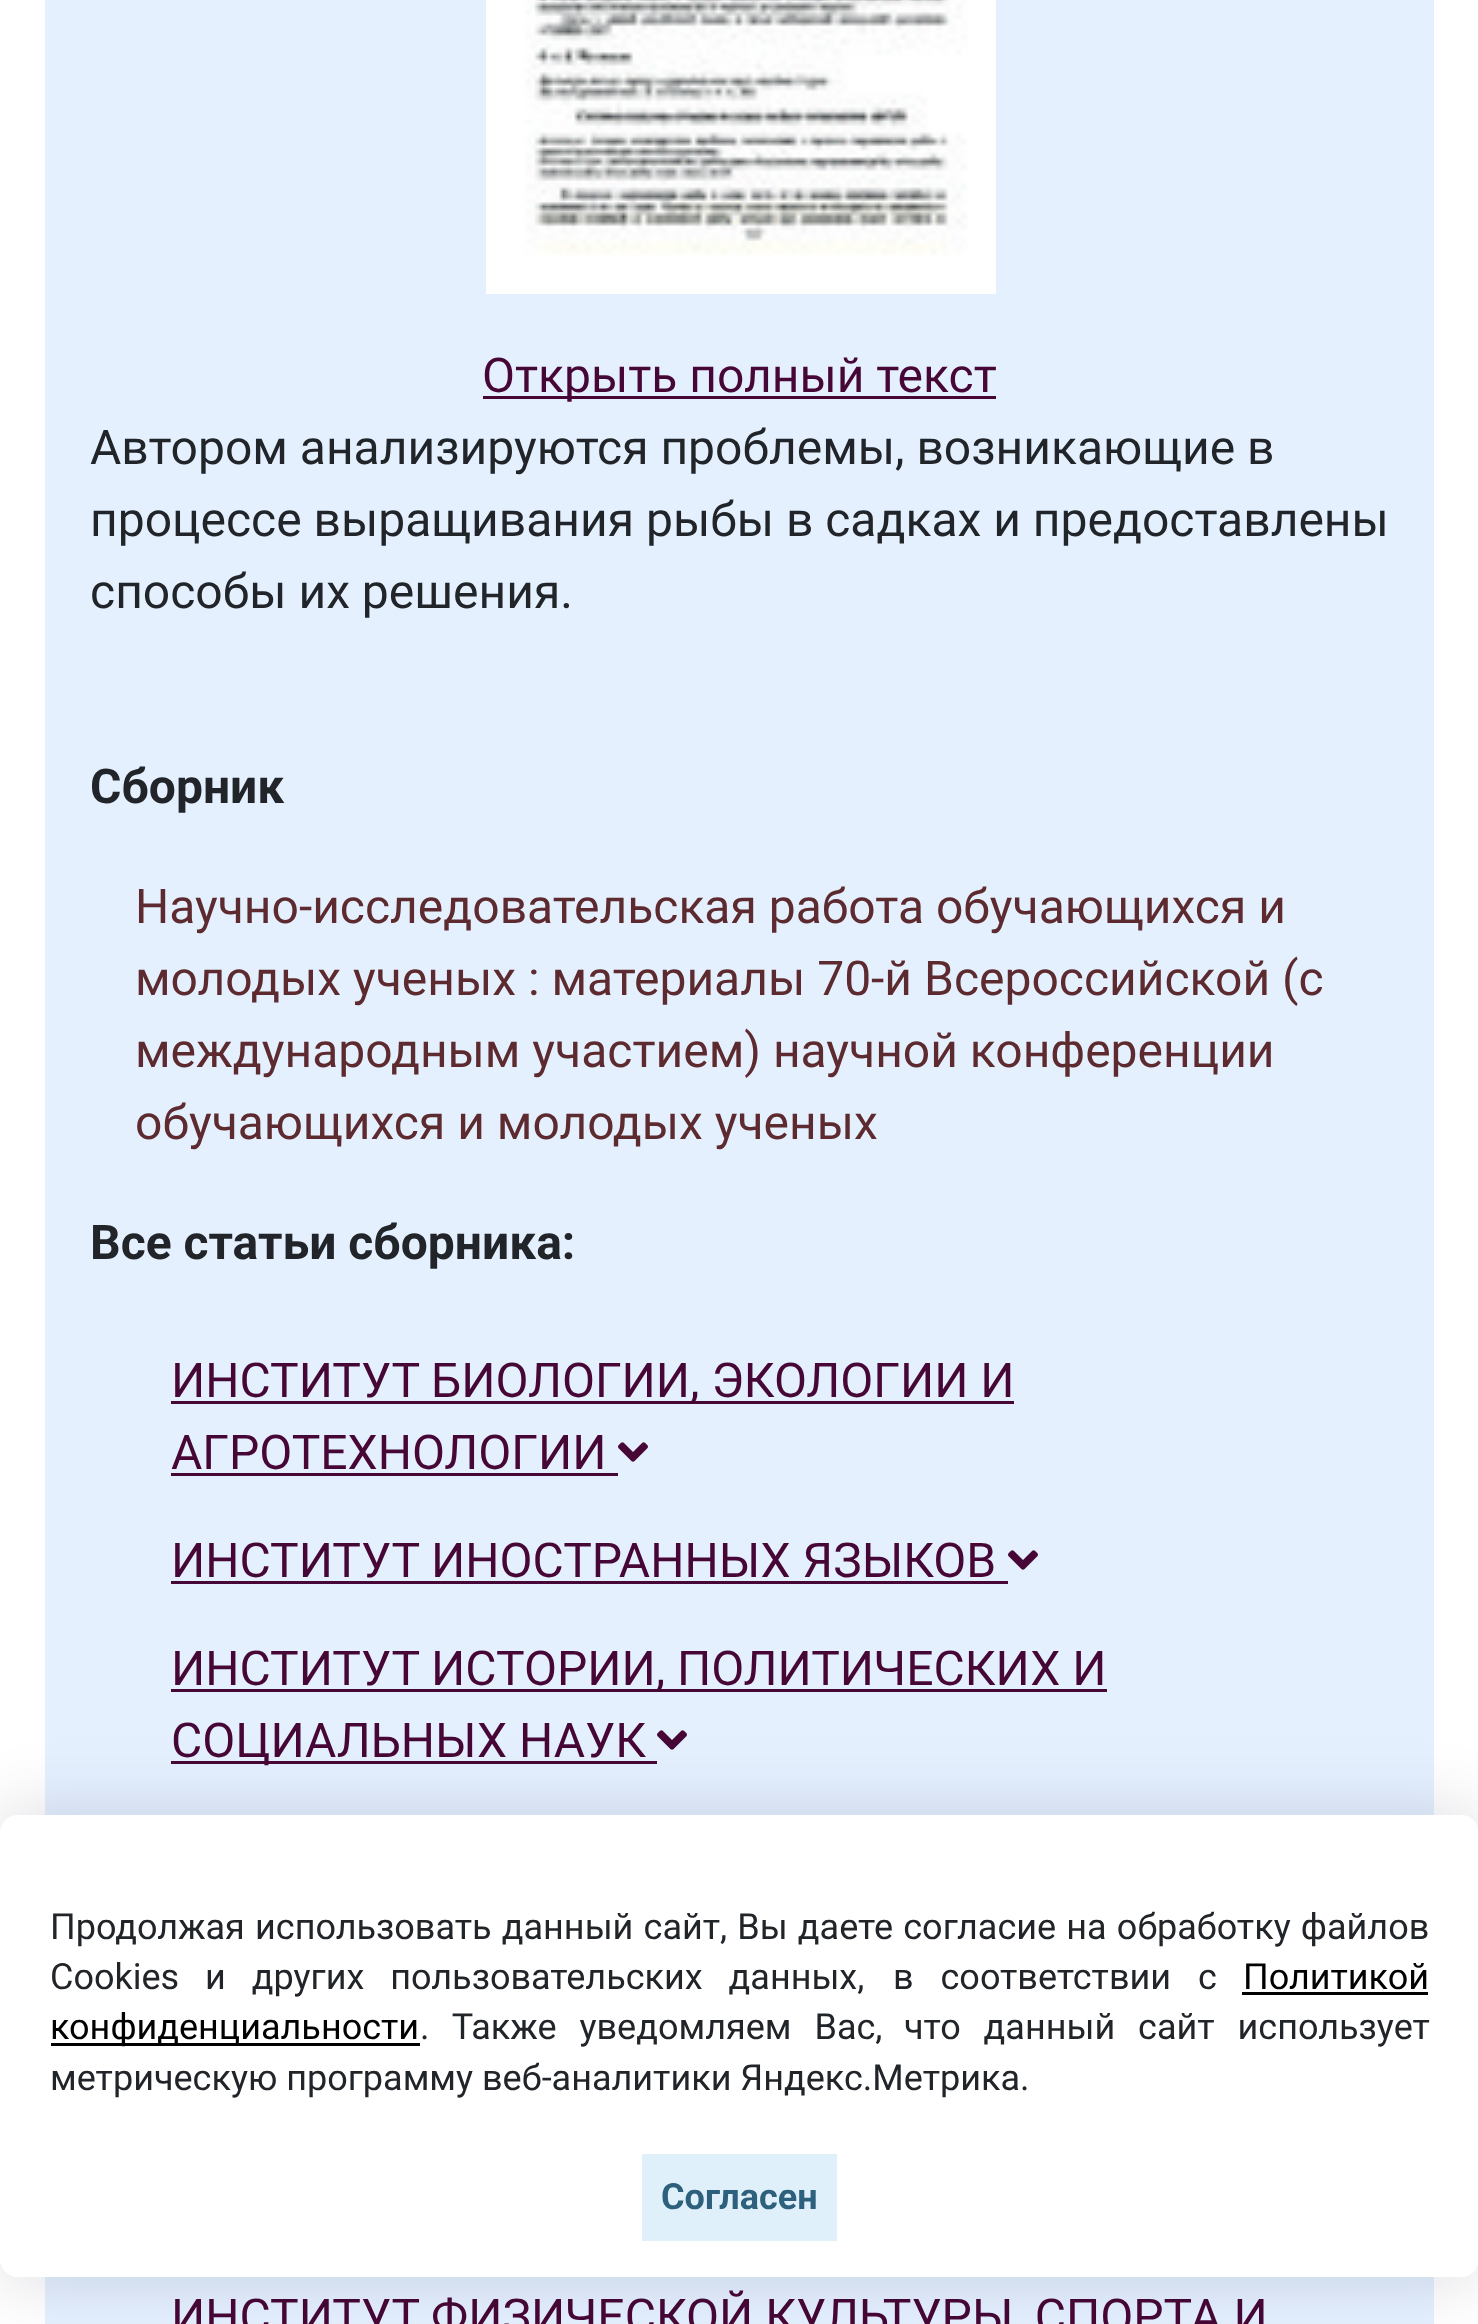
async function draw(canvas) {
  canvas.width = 1478
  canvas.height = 2324
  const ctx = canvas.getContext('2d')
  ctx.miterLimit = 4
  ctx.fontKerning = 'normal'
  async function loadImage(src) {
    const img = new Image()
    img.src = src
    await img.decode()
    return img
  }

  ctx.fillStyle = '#fff'
  ctx.fillRect(0, 0, 1478, 2324)
  ctx.fillStyle = '#e5f0ff'
  ctx.fillRect(45, 0, 1389, 2324)
  ctx.drawImage(await loadImage('image0.png'), 486, 0, 510, 294)
  ctx.fillStyle = '#470736'
  ctx.fillRect(483, 396, 513, 3)
  ctx.font = '48px Roboto'
  ctx.fillText('Открыть полный текст', 482, 392)
  ctx.fillStyle = '#212529'
  ctx.fillText('Автором анализируются проблемы, возникающие в', 90, 464)
  ctx.fillText('процессе выращивания рыбы в садках и предоставлены', 90, 536)
  ctx.fillText('способы их решения.', 90, 608)
  ctx.font = 'bold 48px Roboto'
  ctx.fillText('Сборник', 90, 803)
  ctx.font = '48px Roboto'
  ctx.fillStyle = '#5d2b2f'
  ctx.fillText('Научно-исследовательская работа обучающихся и', 135, 923)
  ctx.fillText('молодых ученых : материалы 70-й Всероссийской (с', 135, 995)
  ctx.fillText('международным участием) научной конференции', 135, 1067)
  ctx.fillText('обучающихся и молодых ученых', 135, 1139)
  ctx.font = 'bold 48px Roboto'
  ctx.fillStyle = '#212529'
  ctx.fillText('Все статьи сборника:', 90, 1259)
  ctx.fillStyle = '#470736'
  ctx.fillRect(171, 1401, 843, 3)
  ctx.font = '48px Roboto'
  ctx.fillText('ИНСТИТУТ БИОЛОГИИ, ЭКОЛОГИИ И', 171, 1397)
  ctx.fillText('АГРОТЕХНОЛОГИИ', 171, 1469)
  ctx.fillRect(171, 1473, 447, 3)
  ctx.drawImage(await loadImage('image1.png'), 618, 1442, 30, 20)
  ctx.fillText('ИНСТИТУТ ИНОСТРАННЫХ ЯЗЫКОВ', 171, 1577)
  ctx.fillRect(171, 1581, 837, 3)
  ctx.drawImage(await loadImage('image1.png'), 1008, 1550, 30, 20)
  ctx.fillRect(171, 1689, 936, 3)
  ctx.fillText('ИНСТИТУТ ИСТОРИИ, ПОЛИТИЧЕСКИХ И', 171, 1685)
  ctx.fillRect(171, 1761, 486, 3)
  ctx.fillText('СОЦИАЛЬНЫХ НАУК', 171, 1757)
  ctx.drawImage(await loadImage('image1.png'), 657, 1730, 30, 20)
  ctx.fillText('ИНСТИТУТ ФИЗИЧЕСКОЙ КУЛЬТУРЫ, СПОРТА И', 171, 2333)
  ctx.fillStyle = '#05001f26'
  ctx.filter = 'blur(36px)'
  ctx.beginPath()
  ctx.roundRect(0, 1815, 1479, 462, 18)
  ctx.fill()
  ctx.filter = 'none'
  ctx.fillStyle = '#fff'
  ctx.beginPath()
  ctx.roundRect(0, 1815, 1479, 462, 18)
  ctx.fill()
  ctx.wordSpacing = '1.25px'
  ctx.font = '36px Roboto'
  ctx.fillStyle = '#212529'
  ctx.fillText('Продолжая использовать данный сайт, Вы даете согласие на обработку файлов', 50, 1939)
  ctx.wordSpacing = '17px'
  ctx.fillText('Cookies и других пользовательских данных,', 50, 1989)
  ctx.wordSpacing = '18px'
  ctx.fillText('в соответствии с', 893, 1989)
  ctx.wordSpacing = '0px'
  ctx.fillStyle = '#000'
  ctx.fillText('Политикой', 1243, 1989)
  ctx.fillRect(1242, 1992, 186, 3)
  ctx.fillRect(51, 2043, 369, 3)
  ctx.fillText('конфиденциальности', 50, 2039)
  ctx.wordSpacing = '14px'
  ctx.fillStyle = '#212529'
  ctx.fillText('. Также уведомляем Вас,', 420, 2039)
  ctx.fillText('что данный сайт использует', 904, 2039)
  ctx.wordSpacing = '0px'
  ctx.fillText('метрическую программу веб-аналитики Яндекс.Метрика.', 50, 2090)
  ctx.fillStyle = '#e0f0fa'
  ctx.fillRect(642, 2154, 195, 87)
  ctx.font = 'bold 36px Roboto'
  ctx.fillStyle = '#2d607d'
  ctx.fillText('Согласен', 661, 2209)
}

draw(document.querySelector('canvas'))
